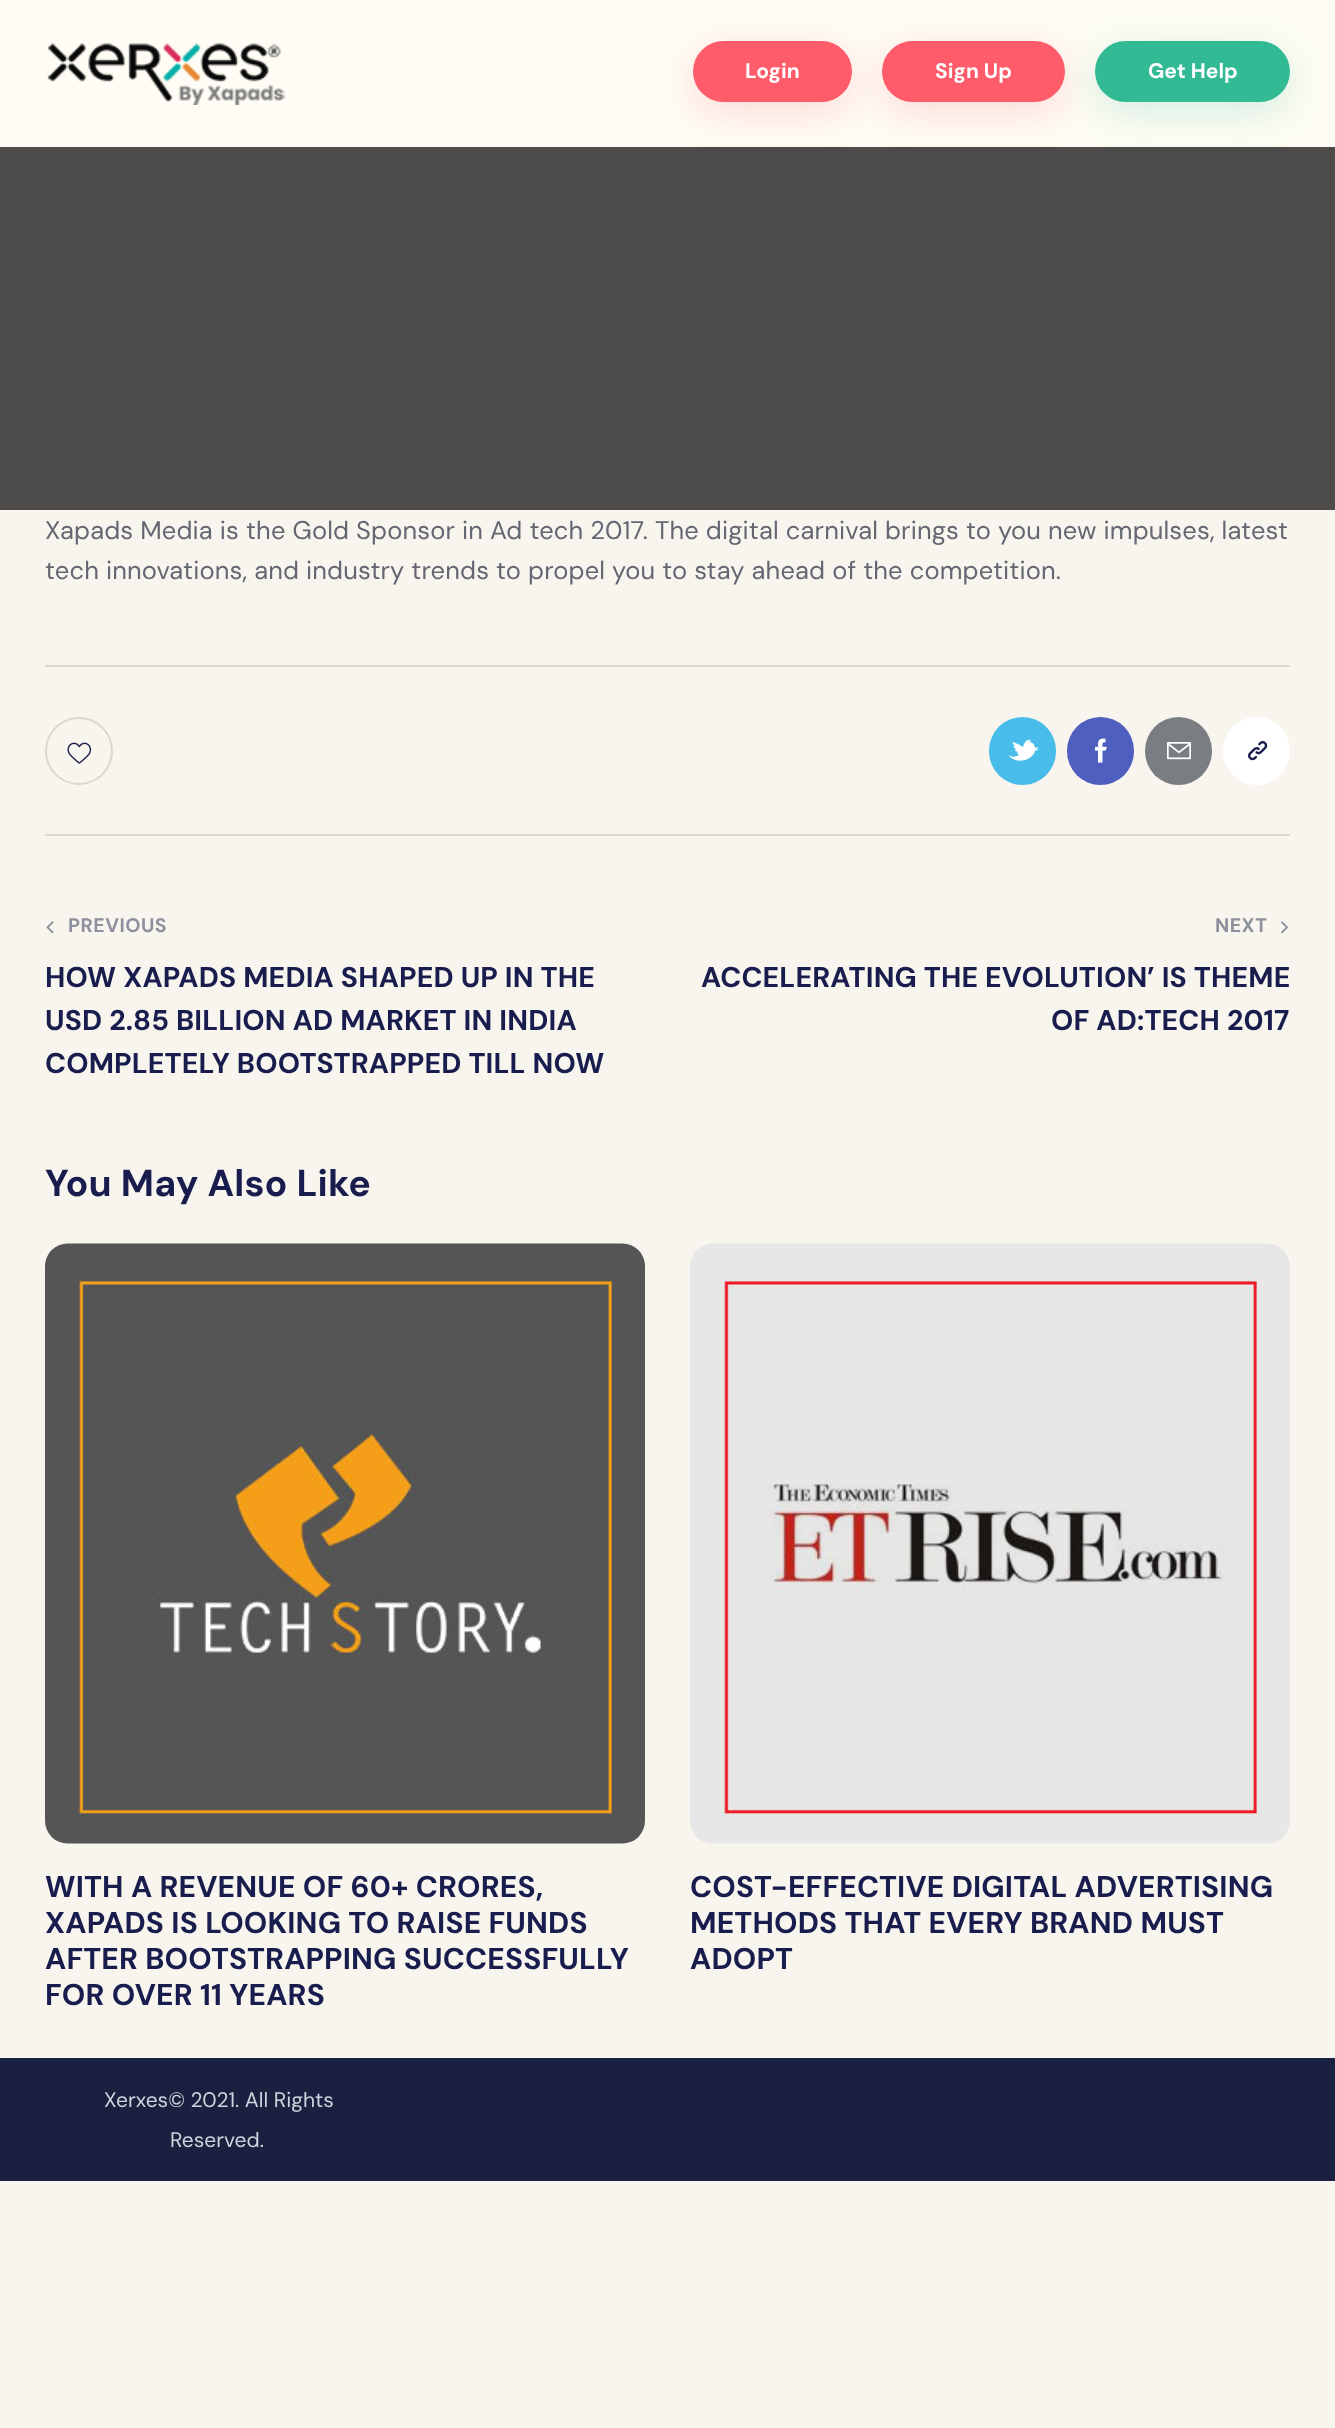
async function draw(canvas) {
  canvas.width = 1335
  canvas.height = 2428
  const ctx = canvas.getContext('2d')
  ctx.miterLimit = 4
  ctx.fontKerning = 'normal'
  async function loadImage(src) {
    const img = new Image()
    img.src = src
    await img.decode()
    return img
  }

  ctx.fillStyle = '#f8f5ef'
  ctx.fillRect(0, 0, 1335, 2428)
  ctx.fillStyle = '#fefcf4'
  ctx.fillRect(0, 0, 1335, 147)
  ctx.drawImage(await loadImage('image0.png'), 47, 43, 238, 62)
  ctx.fillStyle = '#4c4b49'
  ctx.fillRect(0, 147, 1335, 363)
  ctx.fillStyle = '#ff5c6b33'
  ctx.filter = 'blur(19px)'
  ctx.beginPath()
  ctx.roundRect(693, 51, 159, 62, 31)
  ctx.fill()
  ctx.filter = 'none'
  ctx.fillStyle = '#ff5c6b'
  ctx.beginPath()
  ctx.roundRect(693, 41, 159, 61, 30.5)
  ctx.fill()
  ctx.font = 'bold 21px DM Sans'
  ctx.fillStyle = '#fff'
  ctx.fillText('Login', 745, 78)
  ctx.fillStyle = '#ff5c6b33'
  ctx.filter = 'blur(19px)'
  ctx.beginPath()
  ctx.roundRect(882, 51, 183, 62, 31)
  ctx.fill()
  ctx.filter = 'none'
  ctx.fillStyle = '#ff5c6b'
  ctx.beginPath()
  ctx.roundRect(882, 41, 183, 61, 30.5)
  ctx.fill()
  ctx.fillStyle = '#fff'
  ctx.fillText('Sign Up', 935, 78)
  ctx.fillStyle = '#32ba9533'
  ctx.filter = 'blur(19px)'
  ctx.beginPath()
  ctx.roundRect(1095, 51, 195, 62, 31)
  ctx.fill()
  ctx.filter = 'none'
  ctx.fillStyle = '#32ba95'
  ctx.beginPath()
  ctx.roundRect(1095, 41, 195, 61, 30.5)
  ctx.fill()
  ctx.fillStyle = '#fff'
  ctx.fillText('Get Help', 1148, 78)
  ctx.letterSpacing = '0.15px'
  ctx.font = '25.5px DM Sans'
  ctx.fillStyle = '#646672'
  ctx.fillText('Xapads Media is the Gold Sponsor in Ad tech 2017. The digital carnival brings to you new impulses, latest', 45, 539)
  ctx.fillText('tech innovations, and industry trends to propel you to stay ahead of the competition.', 45, 579)
  ctx.fillStyle = '#ddd8cf'
  ctx.fillRect(45, 665, 1245, 2)
  ctx.beginPath()
  ctx.arc(79, 751, 33, 0, 2 * Math.PI)
  ctx.strokeStyle = '#ddd8cf'
  ctx.lineWidth = 2
  ctx.stroke()
  ctx.drawImage(await loadImage('image1.png'), 67, 742, 25, 22)
  ctx.fillStyle = '#48bde9'
  ctx.beginPath()
  ctx.roundRect(989, 717, 67, 68, 33.5)
  ctx.fill()
  ctx.drawImage(await loadImage('image2.png'), 1008, 739, 31, 22)
  ctx.fillStyle = '#4f5fbf'
  ctx.beginPath()
  ctx.roundRect(1067, 717, 67, 68, 33.5)
  ctx.fill()
  ctx.drawImage(await loadImage('image3.png'), 1095, 738, 12, 25)
  ctx.fillStyle = '#7a7e83'
  ctx.beginPath()
  ctx.roundRect(1145, 717, 67, 68, 33.5)
  ctx.fill()
  ctx.drawImage(await loadImage('image4.png'), 1167, 742, 24, 18)
  ctx.fillStyle = '#fff'
  ctx.beginPath()
  ctx.roundRect(1223, 717, 67, 68, 33.5)
  ctx.fill()
  ctx.drawImage(await loadImage('image5.png'), 1248, 741, 20, 20)
  ctx.fillStyle = '#ddd8cf'
  ctx.fillRect(45, 834, 1245, 2)
  ctx.drawImage(await loadImage('image6.png'), 46, 921, 8, 13)
  ctx.letterSpacing = '0.5px'
  ctx.font = 'bold 19.5px DM Sans'
  ctx.fillStyle = '#8e919d'
  ctx.fillText('PREVIOUS', 68, 932)
  ctx.letterSpacing = '0.15px'
  ctx.font = 'bold 28.5px DM Sans'
  ctx.fillStyle = '#181d4e'
  ctx.fillText('HOW XAPADS MEDIA SHAPED UP IN THE', 45, 987)
  ctx.fillText('USD 2.85 BILLION AD MARKET IN INDIA', 45, 1030)
  ctx.fillText('COMPLETELY BOOTSTRAPPED TILL NOW', 45, 1073)
  ctx.letterSpacing = '0.5px'
  ctx.font = 'bold 19.5px DM Sans'
  ctx.fillStyle = '#8e919d'
  ctx.fillText('NEXT', 1215, 932)
  ctx.drawImage(await loadImage('image7.png'), 1281, 921, 7, 13)
  ctx.letterSpacing = '0.15px'
  ctx.font = 'bold 28.5px DM Sans'
  ctx.fillStyle = '#181d4e'
  ctx.fillText('ACCELERATING THE EVOLUTION’ IS THEME', 701, 987)
  ctx.fillText('OF AD:TECH 2017', 1051, 1030)
  ctx.font = 'bold 37.5px DM Sans'
  ctx.fillText('You May Also Like', 45, 1196)
  ctx.drawImage(await loadImage('image8.png'), 45, 1243, 600, 601)
  ctx.font = 'bold 30px DM Sans'
  ctx.fillText('WITH A REVENUE OF 60+ CRORES,', 45, 1897)
  ctx.fillText('XAPADS IS LOOKING TO RAISE FUNDS', 45, 1933)
  ctx.fillText('AFTER BOOTSTRAPPING SUCCESSFULLY', 45, 1969)
  ctx.fillText('FOR OVER 11 YEARS', 45, 2005)
  ctx.drawImage(await loadImage('image9.png'), 690, 1243, 600, 601)
  ctx.fillText('COST-EFFECTIVE DIGITAL ADVERTISING', 690, 1897)
  ctx.fillText('METHODS THAT EVERY BRAND MUST', 690, 1933)
  ctx.fillText('ADOPT', 690, 1969)
  ctx.fillStyle = '#192040'
  ctx.fillRect(0, 2058, 1335, 123)
  ctx.letterSpacing = '0px'
  ctx.font = '21px DM Sans'
  ctx.fillStyle = '#d0d3dc'
  ctx.fillText('Xerxes© 2021. All Rights', 104, 2107)
  ctx.fillText('Reserved.', 170, 2147)
}

draw(document.querySelector('canvas'))
